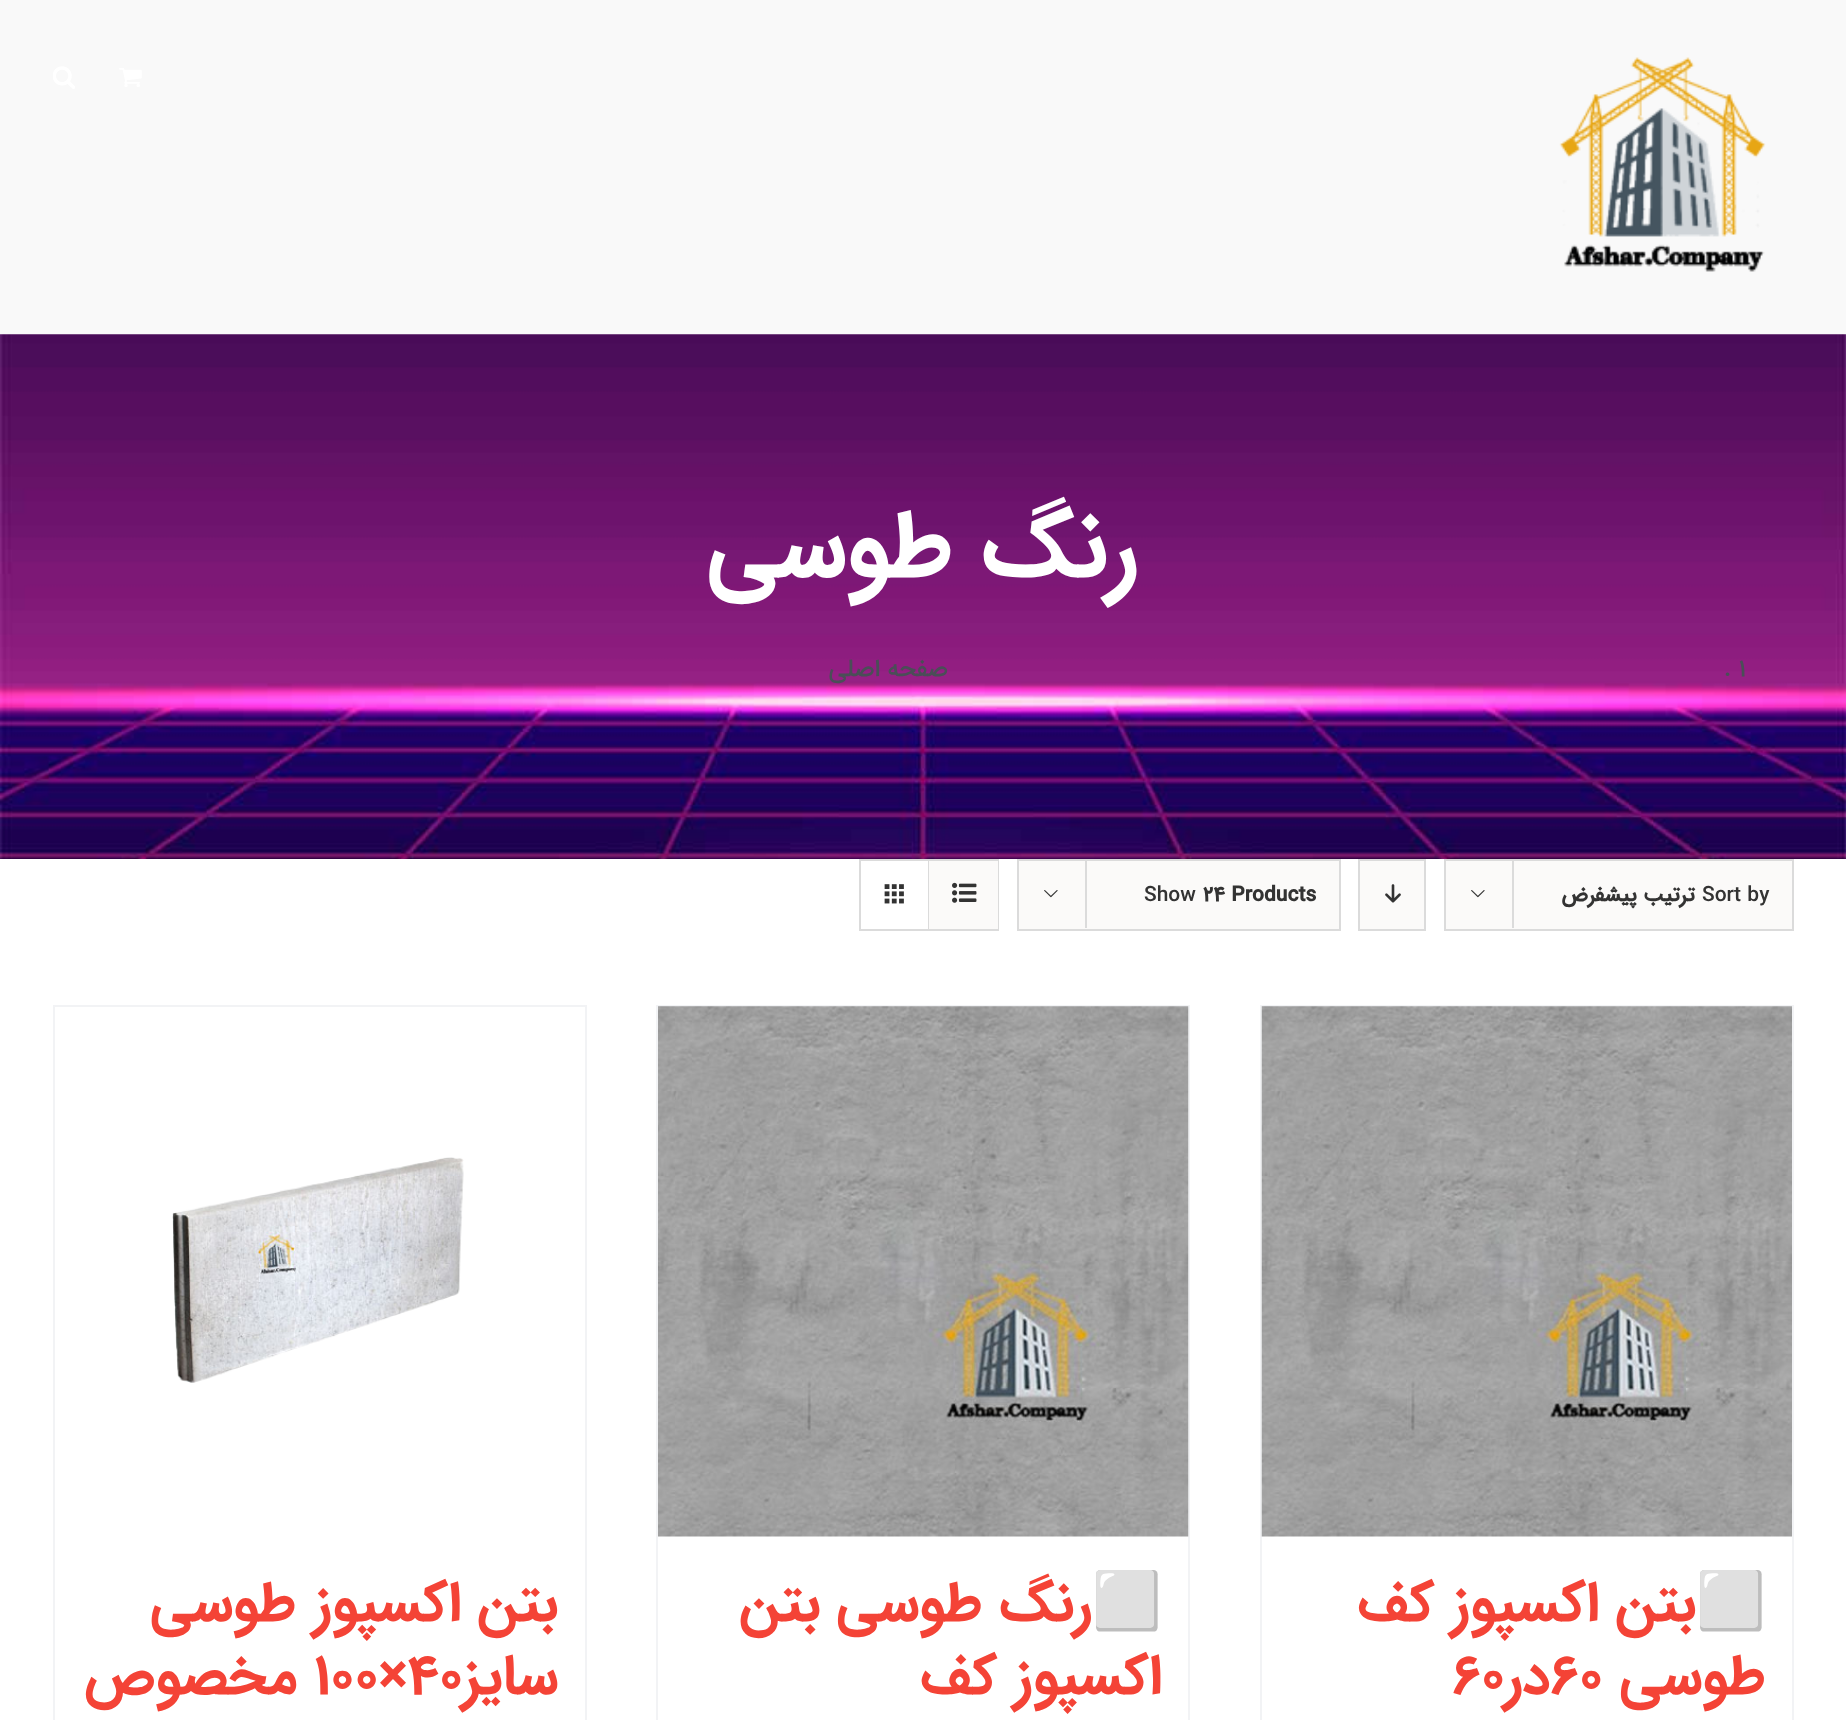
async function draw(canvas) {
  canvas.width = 1846
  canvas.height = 1720
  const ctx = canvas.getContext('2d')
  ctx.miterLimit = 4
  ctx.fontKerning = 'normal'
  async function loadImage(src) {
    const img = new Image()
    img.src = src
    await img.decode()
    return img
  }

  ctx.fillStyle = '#fff'
  ctx.fillRect(0, 0, 1846, 1720)
  ctx.fillStyle = '#f9f9f9'
  ctx.fillRect(0, 0, 1846, 334)
  ctx.drawImage(await loadImage('image0.png'), 1559, 57, 207, 215)
  ctx.drawImage(await loadImage('image1.png'), 119, 68, 23, 19)
  ctx.drawImage(await loadImage('image2.png'), 53, 66, 22, 23)
  ctx.drawImage(await loadImage('image3.png'), 0, 334, 1846, 525)
  ctx.direction = 'rtl'
  ctx.font = 'bold 94.5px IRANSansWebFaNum'
  ctx.fillStyle = '#fff'
  ctx.fillText('رنگ طوسی', 1138, 575)
  ctx.direction = 'ltr'
  ctx.font = '500 24.5px IRANSansWebFaNum'
  ctx.fillStyle = '#4a4e57'
  ctx.fillText('. 1', 1724, 676)
  ctx.direction = 'rtl'
  ctx.fillText('صفحه اصلی', 948, 676)
  ctx.fillStyle = '#fbfaf9'
  ctx.beginPath()
  ctx.rect(1445, 860, 348, 70)
  ctx.fill()
  ctx.strokeStyle = '#dbdbdb'
  ctx.lineWidth = 2
  ctx.stroke()
  ctx.direction = 'ltr'
  ctx.font = '500 21px IRANSansWebFaNum'
  ctx.fillStyle = '#333'
  ctx.fillText('Sort by', 1702, 901)
  ctx.direction = 'rtl'
  ctx.font = 'bold 21px "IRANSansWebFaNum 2"'
  ctx.fillText('ترتیب پیشفرض', 1695, 901)
  ctx.fillStyle = '#dbdbdb'
  ctx.fillRect(1512, 859, 2, 69)
  ctx.drawImage(await loadImage('image4.png'), 1471, 890, 14, 8)
  ctx.fillStyle = '#fbfaf9'
  ctx.beginPath()
  ctx.rect(1359, 860, 66, 70)
  ctx.fill()
  ctx.stroke()
  ctx.drawImage(await loadImage('image5.png'), 1385, 884, 16, 19)
  ctx.beginPath()
  ctx.rect(1018, 860, 322, 70)
  ctx.fill()
  ctx.stroke()
  ctx.direction = 'ltr'
  ctx.fillStyle = '#333'
  ctx.fillText('24 Products', 1203, 901)
  ctx.font = '500 21px IRANSansWebFaNum'
  ctx.fillText('Show', 1144, 901)
  ctx.fillStyle = '#dbdbdb'
  ctx.fillRect(1085, 859, 2, 69)
  ctx.drawImage(await loadImage('image4.png'), 1044, 890, 14, 8)
  ctx.strokeRect(860, 860, 138, 70)
  ctx.fillStyle = '#fbfaf9'
  ctx.fillRect(929, 861, 69, 68)
  ctx.drawImage(await loadImage('image6.png'), 952, 882, 25, 21)
  ctx.fillStyle = '#dbdbdb'
  ctx.fillRect(928, 861, 1, 68)
  ctx.drawImage(await loadImage('image7.png'), 884, 884, 20, 20)
  ctx.fillStyle = '#f2f3f5'
  ctx.fillRect(1260, 1005, 534, 2)
  ctx.fillRect(1792, 1005, 2, 715)
  ctx.fillRect(1260, 1005, 2, 715)
  ctx.drawImage(await loadImage('image8.png'), 1261, 1006, 531, 531)
  ctx.direction = 'rtl'
  ctx.font = '56px Noto Color Emoji'
  ctx.fillStyle = '#f44336'
  ctx.fillText('⬜️', 1766, 1620)
  ctx.font = 'bold 56px IRANSansWebFaNum'
  ctx.fillText('بتن اکسپوز کف', 1696, 1620)
  ctx.fillText('طوسی', 1766, 1693)
  ctx.direction = 'ltr'
  ctx.fillText('60', 1550, 1693)
  ctx.fillText('60', 1452, 1693)
  ctx.direction = 'rtl'
  ctx.fillText('در', 1550, 1693)
  ctx.fillStyle = '#f2f3f5'
  ctx.fillRect(656, 1005, 534, 2)
  ctx.fillRect(1188, 1005, 2, 715)
  ctx.fillRect(656, 1005, 2, 715)
  ctx.drawImage(await loadImage('image9.png'), 658, 1006, 531, 531)
  ctx.font = '56px Noto Color Emoji'
  ctx.fillStyle = '#f44336'
  ctx.fillText('⬜️', 1162, 1620)
  ctx.font = 'bold 56px IRANSansWebFaNum'
  ctx.fillText('رنگ طوسی بتن', 1092, 1620)
  ctx.fillText('اکسپوز کف', 1162, 1693)
  ctx.fillStyle = '#f2f3f5'
  ctx.fillRect(53, 1005, 533, 2)
  ctx.fillRect(585, 1005, 2, 715)
  ctx.fillRect(53, 1005, 2, 715)
  ctx.drawImage(await loadImage('image10.png'), 172, 1157, 292, 226)
  ctx.fillStyle = '#f44336'
  ctx.fillText('بتن اکسپوز طوسی', 558, 1620)
  ctx.direction = 'ltr'
  ctx.fillText('100×40', 314, 1693)
  ctx.direction = 'rtl'
  ctx.fillText('سایز', 558, 1693)
  ctx.fillText('مخصوص', 297, 1693)
}

draw(document.querySelector('canvas'))
